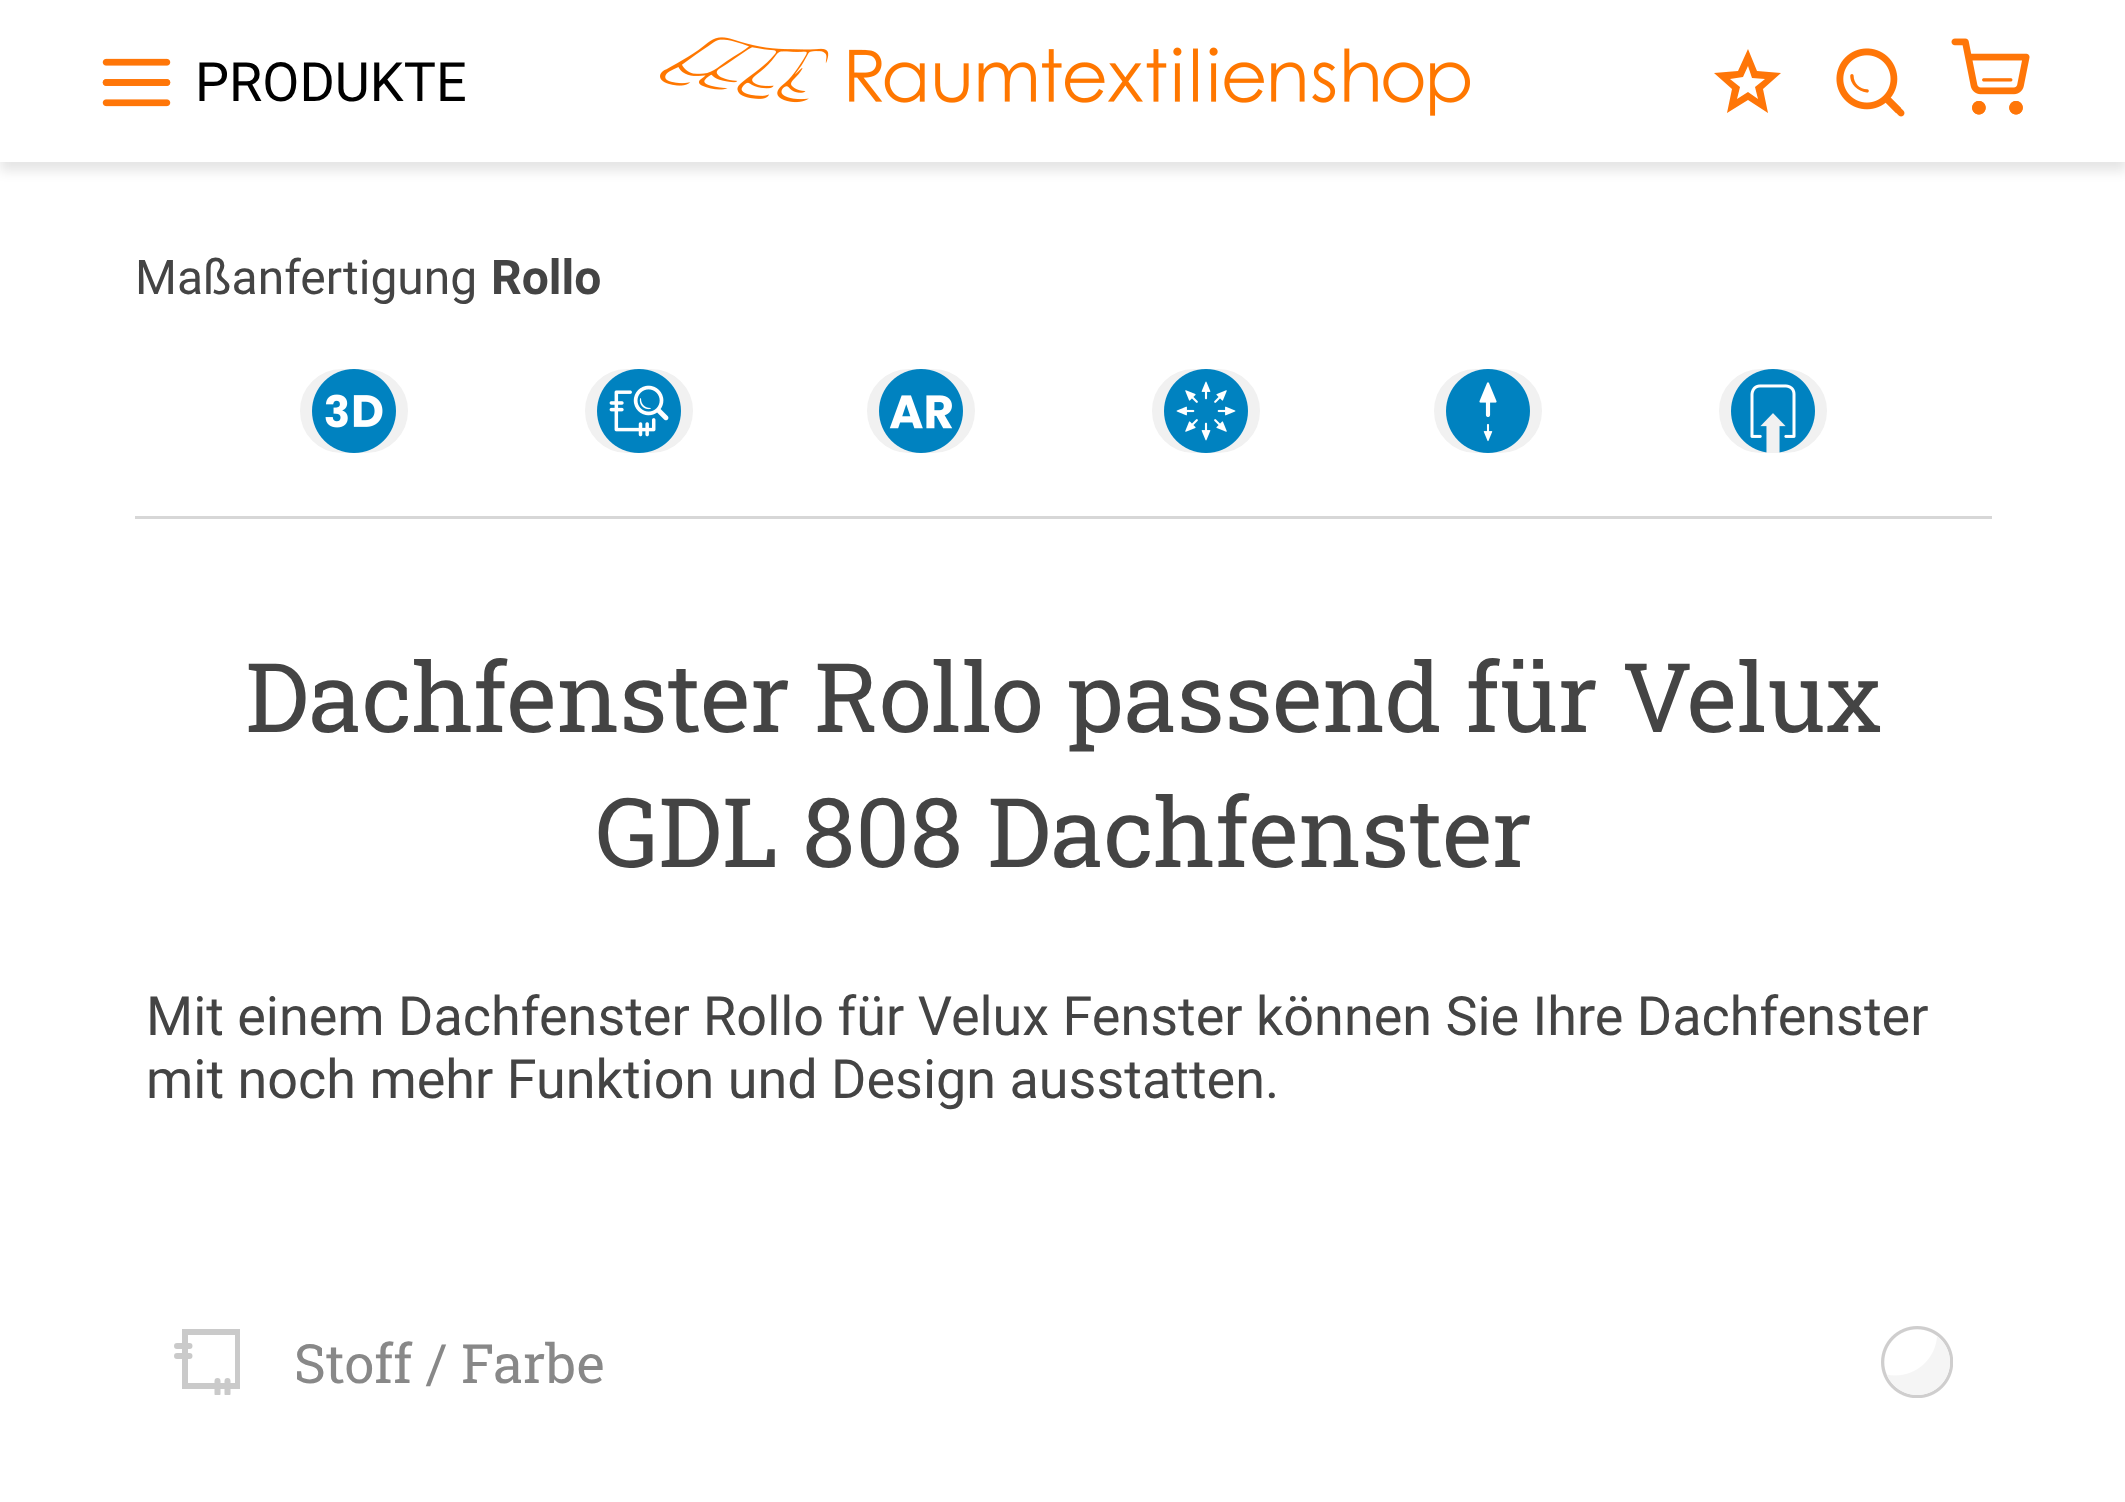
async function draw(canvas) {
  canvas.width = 2125
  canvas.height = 1502
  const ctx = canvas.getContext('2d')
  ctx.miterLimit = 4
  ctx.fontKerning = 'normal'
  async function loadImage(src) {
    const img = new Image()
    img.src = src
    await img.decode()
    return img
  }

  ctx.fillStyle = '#fff'
  ctx.fillRect(0, 0, 2125, 1502)
  ctx.fillStyle = '#0000001a'
  ctx.filter = 'blur(6px)'
  ctx.beginPath()
  ctx.rect(0, 3, 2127, 168)
  ctx.fill()
  ctx.filter = 'none'
  ctx.fillStyle = '#fff'
  ctx.fillRect(0, 0, 2125, 162)
  ctx.drawImage(await loadImage('image0.png'), 102, 58, 69, 49)
  ctx.font = '54px Roboto'
  ctx.fillStyle = '#000'
  ctx.fillText('PRODUKTE', 195, 101)
  ctx.drawImage(await loadImage('image1.png'), 660, 37, 810, 79)
  ctx.fillStyle = '#ff7608'
  ctx.beginPath()
  ctx.moveTo(1737, 99)
  ctx.lineTo(1748, 92)
  ctx.lineTo(1758, 99)
  ctx.lineTo(1755, 87)
  ctx.lineTo(1765, 79)
  ctx.lineTo(1752, 78)
  ctx.lineTo(1748, 66)
  ctx.lineTo(1743, 77)
  ctx.lineTo(1730, 79)
  ctx.lineTo(1740, 87)
  ctx.closePath()
  ctx.moveTo(1727, 113)
  ctx.lineTo(1732, 89)
  ctx.lineTo(1714, 73)
  ctx.lineTo(1738, 71)
  ctx.lineTo(1748, 49)
  ctx.lineTo(1757, 71)
  ctx.lineTo(1781, 73)
  ctx.lineTo(1763, 89)
  ctx.lineTo(1768, 113)
  ctx.lineTo(1748, 100)
  ctx.closePath()
  ctx.moveTo(1748, 83)
  ctx.closePath()
  ctx.fill()
  ctx.drawImage(await loadImage('image2.png'), 1836, 48, 69, 69)
  ctx.drawImage(await loadImage('image3.png'), 1951, 38, 79, 77)
  ctx.font = '48px Roboto'
  ctx.fillStyle = '#444'
  ctx.fillText('Maßanfertigung', 135, 294)
  ctx.font = 'bold 48px Roboto'
  ctx.fillText('Rollo', 491, 294)
  ctx.fillStyle = '#d7d7d7'
  ctx.fillRect(135, 516, 1857, 3)
  ctx.fillStyle = '#f1f1f1'
  ctx.beginPath()
  ctx.roundRect(295.5, 364.5, 117, 93, 46.5)
  ctx.fill()
  ctx.strokeStyle = '#fff'
  ctx.lineWidth = 9
  ctx.stroke()
  ctx.drawImage(await loadImage('image4.png'), 312, 369, 84, 84)
  ctx.beginPath()
  ctx.roundRect(580.5, 364.5, 117, 93, 46.5)
  ctx.fill()
  ctx.stroke()
  ctx.drawImage(await loadImage('image5.png'), 597, 369, 84, 84)
  ctx.beginPath()
  ctx.roundRect(862.5, 364.5, 117, 93, 46.5)
  ctx.fill()
  ctx.stroke()
  ctx.drawImage(await loadImage('image6.png'), 879, 369, 84, 84)
  ctx.beginPath()
  ctx.roundRect(1147.5, 364.5, 117, 93, 46.5)
  ctx.fill()
  ctx.stroke()
  ctx.drawImage(await loadImage('image7.png'), 1164, 369, 84, 84)
  ctx.beginPath()
  ctx.roundRect(1429.5, 364.5, 117, 93, 46.5)
  ctx.fill()
  ctx.stroke()
  ctx.drawImage(await loadImage('image8.png'), 1446, 369, 84, 84)
  ctx.beginPath()
  ctx.roundRect(1714.5, 364.5, 117, 93, 46.5)
  ctx.fill()
  ctx.stroke()
  ctx.drawImage(await loadImage('image9.png'), 1731, 369, 84, 84)
  ctx.font = '96px Roboto Slab'
  ctx.fillStyle = '#444'
  ctx.fillText('Dachfenster Rollo passend für Velux', 245, 732)
  ctx.fillText('GDL 808 Dachfenster', 595, 867)
  ctx.font = '54px Roboto'
  ctx.fillText('Mit einem Dachfenster Rollo für Velux Fenster können Sie Ihre Dachfenster', 146, 1035)
  ctx.fillText('mit noch mehr Funktion und Design ausstatten.', 146, 1098)
  ctx.save()
  ctx.beginPath()
  ctx.rect(174, 1329, 66, 66)
  ctx.clip()
  ctx.strokeStyle = '#cacaca'
  ctx.lineWidth = 6
  ctx.strokeRect(185, 1332, 53, 54)
  ctx.beginPath()
  ctx.moveTo(217.5, 1381)
  ctx.lineTo(217.5, 1393.5)
  ctx.moveTo(227.5, 1381)
  ctx.lineTo(227.5, 1393.5)
  ctx.lineCap = 'round'
  ctx.stroke()
  ctx.restore()
  ctx.beginPath()
  ctx.moveTo(189.5, 1346)
  ctx.lineTo(177, 1346)
  ctx.moveTo(189.5, 1356)
  ctx.lineTo(177, 1356)
  ctx.strokeStyle = '#cacaca'
  ctx.lineWidth = 6
  ctx.lineCap = 'round'
  ctx.stroke()
  ctx.font = '54px Roboto Slab'
  ctx.fillStyle = '#888'
  ctx.fillText('Stoff / Farbe', 294, 1383)
  ctx.drawImage(await loadImage('image10.png'), 1881, 1326, 72, 72)
}

draw(document.querySelector('canvas'))
